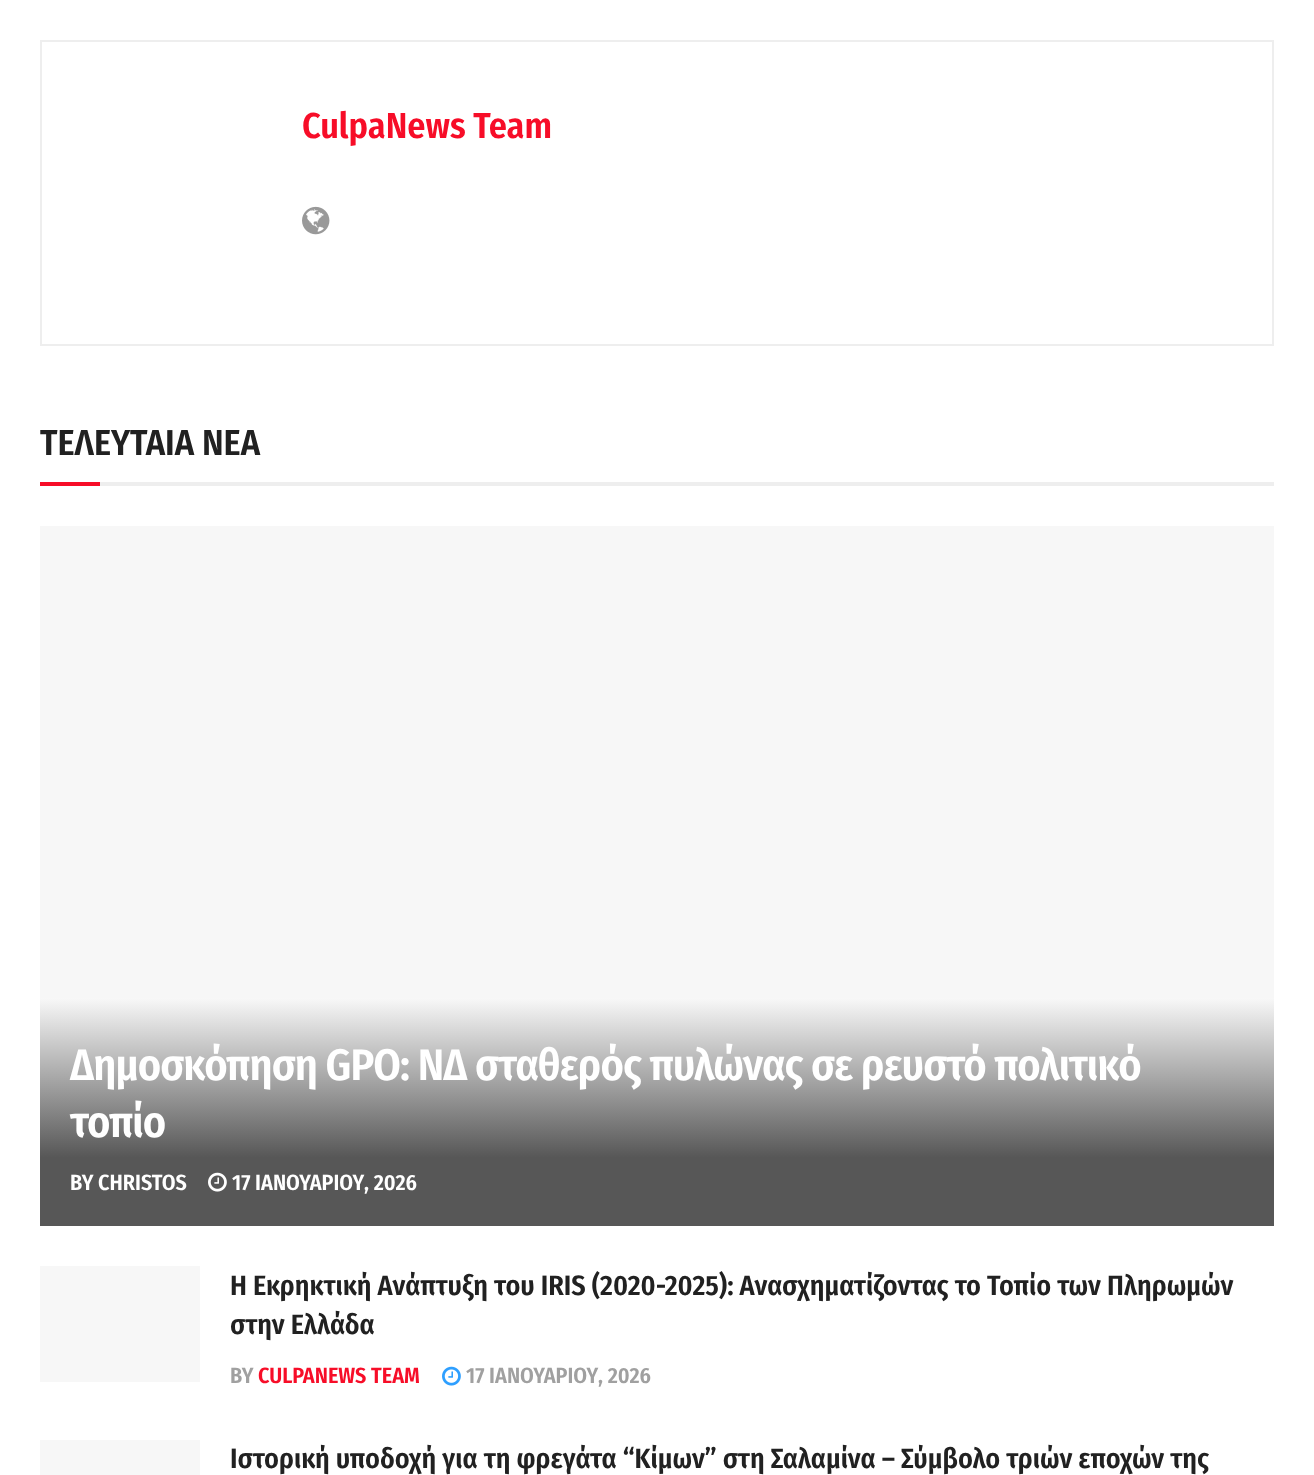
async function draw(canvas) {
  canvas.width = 1314
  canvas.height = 1475
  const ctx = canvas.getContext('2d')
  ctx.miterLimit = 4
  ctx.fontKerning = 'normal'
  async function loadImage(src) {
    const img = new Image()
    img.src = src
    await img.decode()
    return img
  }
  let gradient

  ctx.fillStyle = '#fff'
  ctx.fillRect(0, 0, 1314, 1475)
  ctx.strokeStyle = '#eee'
  ctx.lineWidth = 2
  ctx.strokeRect(41, 41, 1232, 304)
  ctx.font = '600 36px Fira Sans Condensed'
  ctx.fillStyle = '#f70d28'
  ctx.fillText('CulpaNews Team', 302, 138)
  ctx.drawImage(await loadImage('image0.png'), 302, 206, 28, 29)
  ctx.fillStyle = '#eee'
  ctx.fillRect(100, 482, 1174, 4)
  ctx.fillStyle = '#212121'
  ctx.fillText('ΤΕΛΕΥΤΑΙΑ ΝΕΑ', 40, 455)
  ctx.fillStyle = '#f70d28'
  ctx.fillRect(40, 482, 60, 4)
  ctx.fillStyle = '#f7f7f7'
  ctx.fillRect(40, 526, 1234, 472)
  gradient = ctx.createLinearGradient(657, 998, 657, 1226)
  gradient.addColorStop(0, '#f8f8f8')
  gradient.addColorStop(0.7, '#575757')
  ctx.fillStyle = gradient
  ctx.fillRect(40, 998, 1234, 228)
  ctx.letterSpacing = '-0.88px'
  ctx.font = '600 44px Fira Sans Condensed'
  ctx.fillStyle = '#fff'
  ctx.fillText('Δημοσκόπηση GPO: ΝΔ σταθερός πυλώνας σε ρευστό πολιτικό', 70, 1080)
  ctx.fillText('τοπίο', 70, 1137)
  ctx.letterSpacing = '0px'
  ctx.font = '600 22px Fira Sans Condensed'
  ctx.fillText('BY CHRISTOS', 70, 1190)
  ctx.drawImage(await loadImage('image1.png'), 208, 1172, 19, 20)
  ctx.fillText('17 ΙΑΝΟΥΑΡΙΟΥ, 2026', 232, 1190)
  ctx.fillStyle = '#f7f7f7'
  ctx.fillRect(40, 1266, 160, 116)
  ctx.font = '600 28px Fira Sans Condensed'
  ctx.fillStyle = '#212121'
  ctx.fillText('Η Εκρηκτική Ανάπτυξη του IRIS (2020-2025): Ανασχηματίζοντας το Τοπίο των Πληρωμών', 230, 1295)
  ctx.fillText('στην Ελλάδα', 230, 1334)
  ctx.font = '600 22px Fira Sans Condensed'
  ctx.fillStyle = '#a0a0a0'
  ctx.fillText('BY', 230, 1383)
  ctx.fillStyle = '#f70d28'
  ctx.fillText('CULPANEWS TEAM', 258, 1383)
  ctx.drawImage(await loadImage('image2.png'), 442, 1366, 19, 20)
  ctx.fillStyle = '#a0a0a0'
  ctx.fillText('17 ΙΑΝΟΥΑΡΙΟΥ, 2026', 466, 1383)
  ctx.fillStyle = '#f7f7f7'
  ctx.fillRect(40, 1440, 160, 35)
  ctx.font = '600 28px Fira Sans Condensed'
  ctx.fillStyle = '#212121'
  ctx.fillText('Ιστορική υποδοχή για τη φρεγάτα “Κίμων” στη Σαλαμίνα – Σύμβολο τριών εποχών της', 230, 1468)
}

draw(document.querySelector('canvas'))
